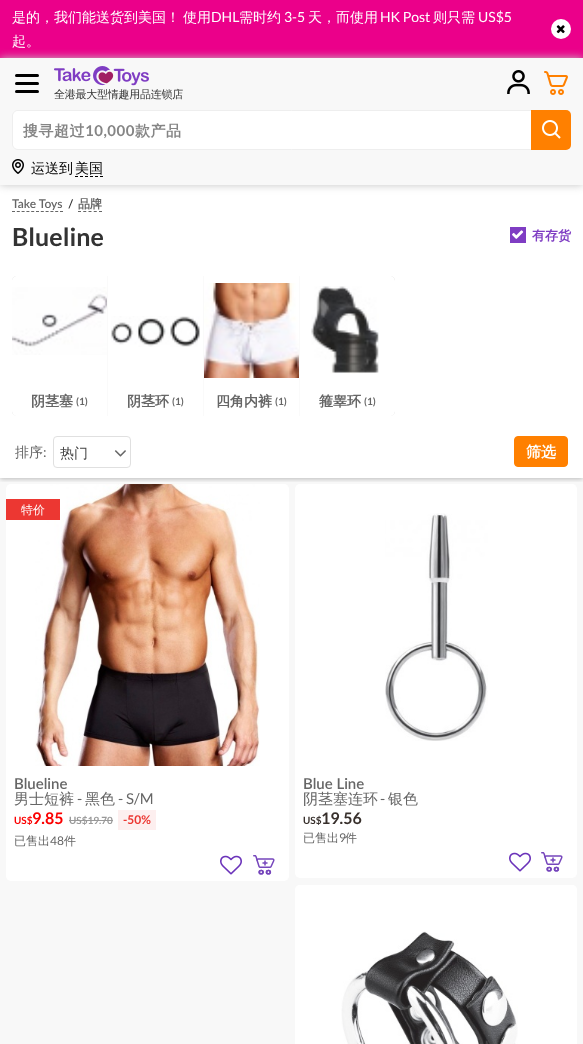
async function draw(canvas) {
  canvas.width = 583
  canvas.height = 1044
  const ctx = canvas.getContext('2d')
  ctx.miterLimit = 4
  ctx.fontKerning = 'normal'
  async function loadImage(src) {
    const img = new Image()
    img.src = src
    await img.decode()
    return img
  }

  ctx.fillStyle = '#fff'
  ctx.fillRect(0, 0, 583, 1044)
  ctx.fillStyle = '#eb008a'
  ctx.fillRect(0, 0, 583, 58)
  ctx.font = '500 14px WenQuanYi Zen Hei'
  ctx.fillStyle = '#fff'
  ctx.fillText('是的，我们能送货到美国！', 12, 22)
  ctx.fillText('使用', 183, 22)
  ctx.font = '14px Lato'
  ctx.fillText('DHL', 211, 22)
  ctx.font = '500 14px WenQuanYi Zen Hei'
  ctx.fillText('需时约', 239, 22)
  ctx.font = '14px Lato'
  ctx.fillText('3-5', 284, 22)
  ctx.font = '500 14px WenQuanYi Zen Hei'
  ctx.fillText('天，而使用', 308, 22)
  ctx.font = '14px Lato'
  ctx.fillText('HK Post', 380, 22)
  ctx.font = '500 14px WenQuanYi Zen Hei'
  ctx.fillText('则只需', 433, 22)
  ctx.font = '14px Lato'
  ctx.fillText('US$5', 478, 22)
  ctx.font = '500 14px WenQuanYi Zen Hei'
  ctx.fillText('起。', 12, 46)
  ctx.beginPath()
  ctx.arc(561, 29, 10, 0, 2 * Math.PI)
  ctx.fill()
  ctx.drawImage(await loadImage('image0.png'), 556, 25, 9, 9)
  ctx.fillStyle = '#c3c3c3'
  ctx.filter = 'blur(4px)'
  ctx.beginPath()
  ctx.rect(0, 58, 583, 127)
  ctx.fill()
  ctx.filter = 'none'
  ctx.fillStyle = '#f8f8f8'
  ctx.fillRect(0, 58, 583, 127)
  ctx.fillStyle = '#000'
  ctx.beginPath()
  ctx.roundRect(15, 74, 24, 3, 1.5)
  ctx.fill()
  ctx.beginPath()
  ctx.roundRect(15, 82, 24, 3, 1.5)
  ctx.fill()
  ctx.beginPath()
  ctx.roundRect(15, 90, 24, 3, 1.5)
  ctx.fill()
  ctx.drawImage(await loadImage('image1.png'), 54, 66, 95, 20)
  ctx.letterSpacing = '-0.25px'
  ctx.font = '500 11px WenQuanYi Zen Hei'
  ctx.fillStyle = '#333'
  ctx.fillText('全港最大型情趣用品连锁店', 54, 98)
  ctx.drawImage(await loadImage('image2.png'), 507, 70, 23, 24)
  ctx.drawImage(await loadImage('image3.png'), 544, 71, 24, 24)
  ctx.beginPath()
  ctx.roundRect(12.5, 110.5, 558, 39, 5.5)
  ctx.strokeStyle = '#eee'
  ctx.stroke()
  ctx.fillStyle = '#fff'
  ctx.beginPath()
  ctx.roundRect(13, 111, 557, 38, 5)
  ctx.fill()
  ctx.letterSpacing = '0.5px'
  ctx.font = 'bold 15px WenQuanYi Zen Hei'
  ctx.fillStyle = '#858585'
  ctx.fillText('搜寻超过', 23, 136)
  ctx.font = 'bold 15px Lato'
  ctx.fillText('10,000', 85, 136)
  ctx.font = 'bold 15px WenQuanYi Zen Hei'
  ctx.fillText('款产品', 135, 136)
  ctx.fillStyle = '#ff8000'
  ctx.beginPath()
  ctx.roundRect(531, 110, 40, 40, [0, 5, 5, 0])
  ctx.fill()
  ctx.drawImage(await loadImage('image4.png'), 542, 120, 19, 19)
  ctx.drawImage(await loadImage('image5.png'), 12, 159, 12, 15)
  ctx.letterSpacing = '0px'
  ctx.font = '500 14px WenQuanYi Zen Hei'
  ctx.fillStyle = '#000'
  ctx.fillText('运送到', 31, 173)
  ctx.fillText('美国', 75, 173)
  ctx.beginPath()
  ctx.moveTo(75, 176.5)
  ctx.lineTo(103, 176.5)
  ctx.strokeStyle = '#000'
  ctx.setLineDash([3, 2])
  ctx.stroke()
  ctx.font = '600 12px Lato'
  ctx.fillStyle = '#666'
  ctx.fillText('Take Toys', 12, 208)
  ctx.beginPath()
  ctx.moveTo(12, 211.5)
  ctx.lineTo(63, 211.5)
  ctx.strokeStyle = '#666'
  ctx.setLineDash([3, 1.8])
  ctx.stroke()
  ctx.fillStyle = '#333'
  ctx.fillText('/', 68, 208)
  ctx.font = 'bold 12px WenQuanYi Zen Hei'
  ctx.fillStyle = '#666'
  ctx.fillText('品牌', 78, 208)
  ctx.beginPath()
  ctx.moveTo(78, 211.5)
  ctx.lineTo(102, 211.5)
  ctx.setLineDash([3, 2.25])
  ctx.stroke()
  ctx.font = 'bold 25px Lato'
  ctx.fillStyle = '#333'
  ctx.fillText('Blueline', 12, 246)
  ctx.fillStyle = '#7f3dc3'
  ctx.fillRect(510, 227, 16, 16)
  ctx.drawImage(await loadImage('image6.png'), 512, 230, 12, 9)
  ctx.font = 'bold 13px WenQuanYi Zen Hei'
  ctx.fillText('有存货', 532, 240)
  ctx.save()
  ctx.beginPath()
  ctx.moveTo(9, 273)
  ctx.lineTo(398, 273)
  ctx.lineTo(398, 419)
  ctx.lineTo(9, 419)
  ctx.closePath()
  ctx.moveTo(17, 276)
  ctx.lineTo(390, 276)
  ctx.bezierCurveTo(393, 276, 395, 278, 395, 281)
  ctx.lineTo(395, 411)
  ctx.bezierCurveTo(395, 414, 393, 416, 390, 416)
  ctx.lineTo(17, 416)
  ctx.bezierCurveTo(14, 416, 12, 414, 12, 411)
  ctx.lineTo(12, 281)
  ctx.bezierCurveTo(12, 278, 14, 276, 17, 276)
  ctx.closePath()
  ctx.clip('evenodd')
  ctx.fillStyle = '#00000040'
  ctx.filter = 'blur(0.5px)'
  ctx.beginPath()
  ctx.roundRect(12, 276, 383, 140, 5)
  ctx.fill()
  ctx.filter = 'none'
  ctx.restore()
  ctx.fillStyle = '#fafafa'
  ctx.fillRect(107, 276, 1, 140)
  ctx.drawImage(await loadImage('image7.png'), 12, 287, 95, 68)
  ctx.font = 'bold 14px WenQuanYi Zen Hei'
  ctx.fillStyle = '#666'
  ctx.fillText('阴茎塞', 31, 406)
  ctx.font = 'bold 10px Lato'
  ctx.fillText('(1)', 76, 405)
  ctx.fillStyle = '#fafafa'
  ctx.fillRect(203, 276, 1, 140)
  ctx.drawImage(await loadImage('image8.png'), 111, 316, 89, 31)
  ctx.font = 'bold 14px WenQuanYi Zen Hei'
  ctx.fillStyle = '#666'
  ctx.fillText('阴茎环', 127, 406)
  ctx.font = 'bold 10px Lato'
  ctx.fillText('(1)', 172, 405)
  ctx.fillStyle = '#fafafa'
  ctx.fillRect(299, 276, 1, 140)
  ctx.drawImage(await loadImage('image9.png'), 204, 283, 95, 95)
  ctx.font = 'bold 14px WenQuanYi Zen Hei'
  ctx.fillStyle = '#666'
  ctx.fillText('四角内裤', 216, 406)
  ctx.font = 'bold 10px Lato'
  ctx.fillText('(1)', 275, 405)
  ctx.drawImage(await loadImage('image10.png'), 311, 286, 68, 88)
  ctx.font = 'bold 14px WenQuanYi Zen Hei'
  ctx.fillText('箍睾环', 319, 406)
  ctx.font = 'bold 10px Lato'
  ctx.fillText('(1)', 364, 405)
  ctx.fillStyle = '#f8f8f8'
  ctx.fillRect(0, 478, 583, 566)
  ctx.fillStyle = '#fff'
  ctx.beginPath()
  ctx.roundRect(6, 484, 283, 397, 5)
  ctx.fill()
  ctx.drawImage(await loadImage('image12.png'), 35, 484, 225, 282)
  ctx.beginPath()
  ctx.roundRect(295, 484, 282, 394, 5)
  ctx.fill()
  ctx.save()
  ctx.beginPath()
  ctx.rect(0, 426, 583, 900)
  ctx.clip()
  ctx.beginPath()
  ctx.rect(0, 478, 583, 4)
  ctx.clip()
  ctx.fillStyle = '#00000040'
  ctx.filter = 'blur(2.5px)'
  ctx.beginPath()
  ctx.rect(0, 427, 583, 52)
  ctx.fill()
  ctx.filter = 'none'
  ctx.restore()
  ctx.font = '500 14px WenQuanYi Zen Hei'
  ctx.fillStyle = '#666'
  ctx.fillText('排序', 15, 457)
  ctx.font = '14px Lato'
  ctx.fillText(':', 43, 457)
  ctx.beginPath()
  ctx.roundRect(53.5, 436.5, 77, 31, 3.5)
  ctx.strokeStyle = '#e0e0e0'
  ctx.setLineDash([])
  ctx.stroke()
  ctx.font = '500 14px WenQuanYi Zen Hei'
  ctx.fillStyle = '#444'
  ctx.fillText('热门', 60, 458)
  ctx.drawImage(await loadImage('image11.png'), 114, 450, 12, 7)
  ctx.fillStyle = '#ff8000'
  ctx.beginPath()
  ctx.roundRect(514.5, 436.5, 53, 30, 3.5)
  ctx.fill()
  ctx.strokeStyle = '#ff8000'
  ctx.stroke()
  ctx.font = 'bold 15px WenQuanYi Zen Hei'
  ctx.fillStyle = '#fff'
  ctx.fillText('筛选', 526, 457)
  ctx.fillStyle = '#ec3732'
  ctx.fillRect(6, 499, 54, 21)
  ctx.font = '500 12px WenQuanYi Zen Hei'
  ctx.fillStyle = '#fff'
  ctx.fillText('特价', 21, 514)
  ctx.font = '600 15px Lato'
  ctx.fillStyle = '#666'
  ctx.fillText('Blueline', 14, 789)
  ctx.font = '500 15px WenQuanYi Zen Hei'
  ctx.fillText('男士短裤', 14, 804)
  ctx.font = '15px Lato'
  ctx.fillText('-', 77, 804)
  ctx.font = '500 15px WenQuanYi Zen Hei'
  ctx.fillText('黑色', 85, 804)
  ctx.font = '15px Lato'
  ctx.fillText('- S/M', 118, 804)
  ctx.font = 'bold 10px Lato'
  ctx.fillStyle = '#fb0000'
  ctx.fillText('US$', 14, 824)
  ctx.font = 'bold 16px Lato'
  ctx.fillText('9.85', 32, 824)
  ctx.font = 'bold 10px Lato'
  ctx.fillStyle = '#999'
  ctx.fillText('US$19.70', 69, 824)
  ctx.fillRect(69, 820, 44, 1)
  ctx.fillStyle = '#fdefef'
  ctx.fillRect(118, 810, 38, 20)
  ctx.font = 'bold 12px Lato'
  ctx.fillStyle = '#ec3732'
  ctx.fillText('-50%', 123, 824)
  ctx.font = '500 12px WenQuanYi Zen Hei'
  ctx.fillStyle = '#666'
  ctx.fillText('已售出', 14, 845)
  ctx.font = '12px Lato'
  ctx.fillText('48', 50, 845)
  ctx.font = '500 12px WenQuanYi Zen Hei'
  ctx.fillText('件', 64, 845)
  ctx.drawImage(await loadImage('image13.png'), 220, 855, 22, 20)
  ctx.drawImage(await loadImage('image14.png'), 253, 855, 22, 20)
  ctx.drawImage(await loadImage('image15.png'), 385, 513, 103, 228)
  ctx.font = '600 15px Lato'
  ctx.fillText('Blue Line', 303, 789)
  ctx.font = '500 15px WenQuanYi Zen Hei'
  ctx.fillText('阴茎塞连环', 303, 804)
  ctx.font = '15px Lato'
  ctx.fillText('-', 380, 804)
  ctx.font = '500 15px WenQuanYi Zen Hei'
  ctx.fillText('银色', 388, 804)
  ctx.font = 'bold 10px Lato'
  ctx.fillStyle = '#372f2b'
  ctx.fillText('US$', 303, 824)
  ctx.font = 'bold 16px Lato'
  ctx.fillText('19.56', 321, 824)
  ctx.font = '500 12px WenQuanYi Zen Hei'
  ctx.fillStyle = '#666'
  ctx.fillText('已售出', 303, 842)
  ctx.font = '12px Lato'
  ctx.fillText('9', 339, 842)
  ctx.font = '500 12px WenQuanYi Zen Hei'
  ctx.fillText('件', 345, 842)
  ctx.drawImage(await loadImage('image13.png'), 509, 852, 22, 20)
  ctx.drawImage(await loadImage('image16.png'), 541, 852, 22, 20)
  ctx.fillStyle = '#fff'
  ctx.beginPath()
  ctx.moveTo(300, 885)
  ctx.lineTo(572, 885)
  ctx.bezierCurveTo(575, 885, 577, 887, 577, 890)
  ctx.lineTo(577, 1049)
  ctx.lineTo(295, 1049)
  ctx.lineTo(295, 890)
  ctx.bezierCurveTo(295, 887, 297, 885, 300, 885)
  ctx.closePath()
  ctx.fill()
  ctx.drawImage(await loadImage('image17.png'), 341, 931, 177, 113)
}

draw(document.querySelector('canvas'))
